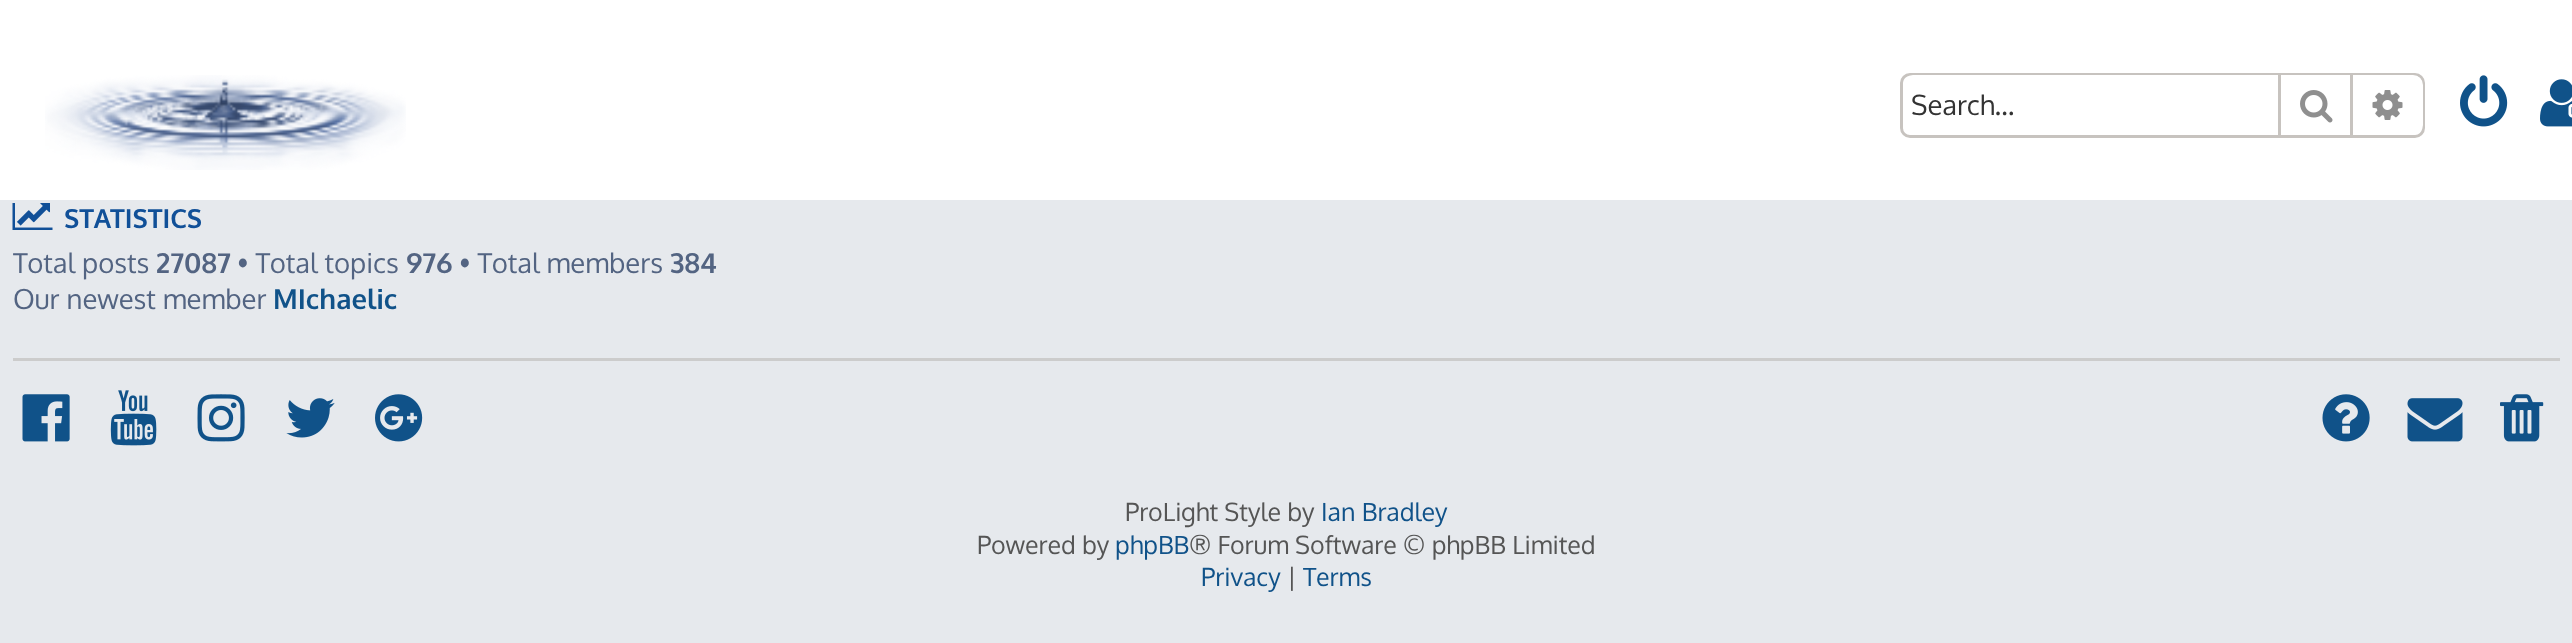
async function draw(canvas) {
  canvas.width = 2572
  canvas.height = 643
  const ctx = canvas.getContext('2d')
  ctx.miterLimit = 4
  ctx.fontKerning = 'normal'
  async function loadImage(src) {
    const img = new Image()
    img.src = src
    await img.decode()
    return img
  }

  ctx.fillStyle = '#e6e9ed'
  ctx.fillRect(0, 0, 2572, 643)
  ctx.fillStyle = '#fff'
  ctx.fillRect(0, 0, 2572, 200)
  ctx.drawImage(await loadImage('image0.png'), 45, 75, 361, 95)
  ctx.beginPath()
  ctx.roundRect(1901.5, 74.5, 522, 62, 8.5)
  ctx.strokeStyle = '#c7c3bf'
  ctx.lineWidth = 3
  ctx.stroke()
  ctx.beginPath()
  ctx.roundRect(1903, 75, 375, 60, [10, 0, 0, 10])
  ctx.fill()
  ctx.font = '27.5px Oxygen'
  ctx.fillStyle = '#333'
  ctx.fillText('Search…', 1911, 115)
  ctx.fillStyle = '#fff'
  ctx.fillRect(2281, 75, 69, 1)
  ctx.fillStyle = '#c7c3bf'
  ctx.fillRect(2350, 75, 3, 60)
  ctx.fillRect(2278, 75, 3, 60)
  ctx.drawImage(await loadImage('image1.png'), 2300, 90, 33, 33)
  ctx.fillStyle = '#fff'
  ctx.beginPath()
  ctx.roundRect(2353, 75, 70, 60, [0, 10, 10, 0])
  ctx.fill()
  ctx.drawImage(await loadImage('image2.png'), 2372, 90, 31, 30)
  ctx.drawImage(await loadImage('image3.png'), 2460, 75, 48, 52)
  ctx.drawImage(await loadImage('image4.png'), 2540, 79, 32, 48)
  ctx.drawImage(await loadImage('image5.png'), 12, 203, 41, 27)
  ctx.font = 'bold 26.25px Oxygen'
  ctx.fillStyle = '#115098'
  ctx.fillText('STATISTICS', 64, 228)
  ctx.font = '27.5px Oxygen'
  ctx.fillStyle = '#536482'
  ctx.fillText('Total posts', 13, 273)
  ctx.font = 'bold 27.5px Oxygen'
  ctx.fillText('27087', 156, 273)
  ctx.font = '27.5px Oxygen'
  ctx.fillText('• Total topics', 237, 273)
  ctx.font = 'bold 27.5px Oxygen'
  ctx.fillText('976', 406, 273)
  ctx.font = '27.5px Oxygen'
  ctx.fillText('• Total members', 459, 273)
  ctx.font = 'bold 27.5px Oxygen'
  ctx.fillText('384', 670, 273)
  ctx.font = '27.5px Oxygen'
  ctx.fillText('Our newest member', 13, 309)
  ctx.font = 'bold 27.5px Oxygen'
  ctx.fillStyle = '#105289'
  ctx.fillText('MIchaelic', 273, 309)
  ctx.fillStyle = '#ccc'
  ctx.fillRect(13, 358, 2547, 3)
  ctx.drawImage(await loadImage('image6.png'), 22, 394, 48, 48)
  ctx.drawImage(await loadImage('image7.png'), 110, 390, 47, 56)
  ctx.drawImage(await loadImage('image8.png'), 197, 394, 48, 48)
  ctx.drawImage(await loadImage('image9.png'), 286, 398, 49, 40)
  ctx.drawImage(await loadImage('image10.png'), 375, 394, 48, 48)
  ctx.drawImage(await loadImage('image11.png'), 2322, 394, 48, 48)
  ctx.drawImage(await loadImage('image12.png'), 2407, 398, 56, 44)
  ctx.drawImage(await loadImage('image13.png'), 2500, 394, 44, 48)
  ctx.font = '25px Oxygen'
  ctx.fillStyle = '#555'
  ctx.fillText('ProLight Style by', 1125, 521)
  ctx.fillStyle = '#105289'
  ctx.fillText('Ian Bradley', 1321, 521)
  ctx.fillStyle = '#555'
  ctx.fillText('Powered by', 977, 554)
  ctx.fillStyle = '#105289'
  ctx.fillText('phpBB', 1115, 554)
  ctx.fillStyle = '#555'
  ctx.fillText('® Forum Software © phpBB Limited', 1189, 554)
  ctx.fillStyle = '#105289'
  ctx.fillText('Privacy', 1201, 586)
  ctx.fillStyle = '#555'
  ctx.fillText('|', 1287, 586)
  ctx.fillStyle = '#105289'
  ctx.fillText('Terms', 1303, 586)
}

draw(document.querySelector('canvas'))
